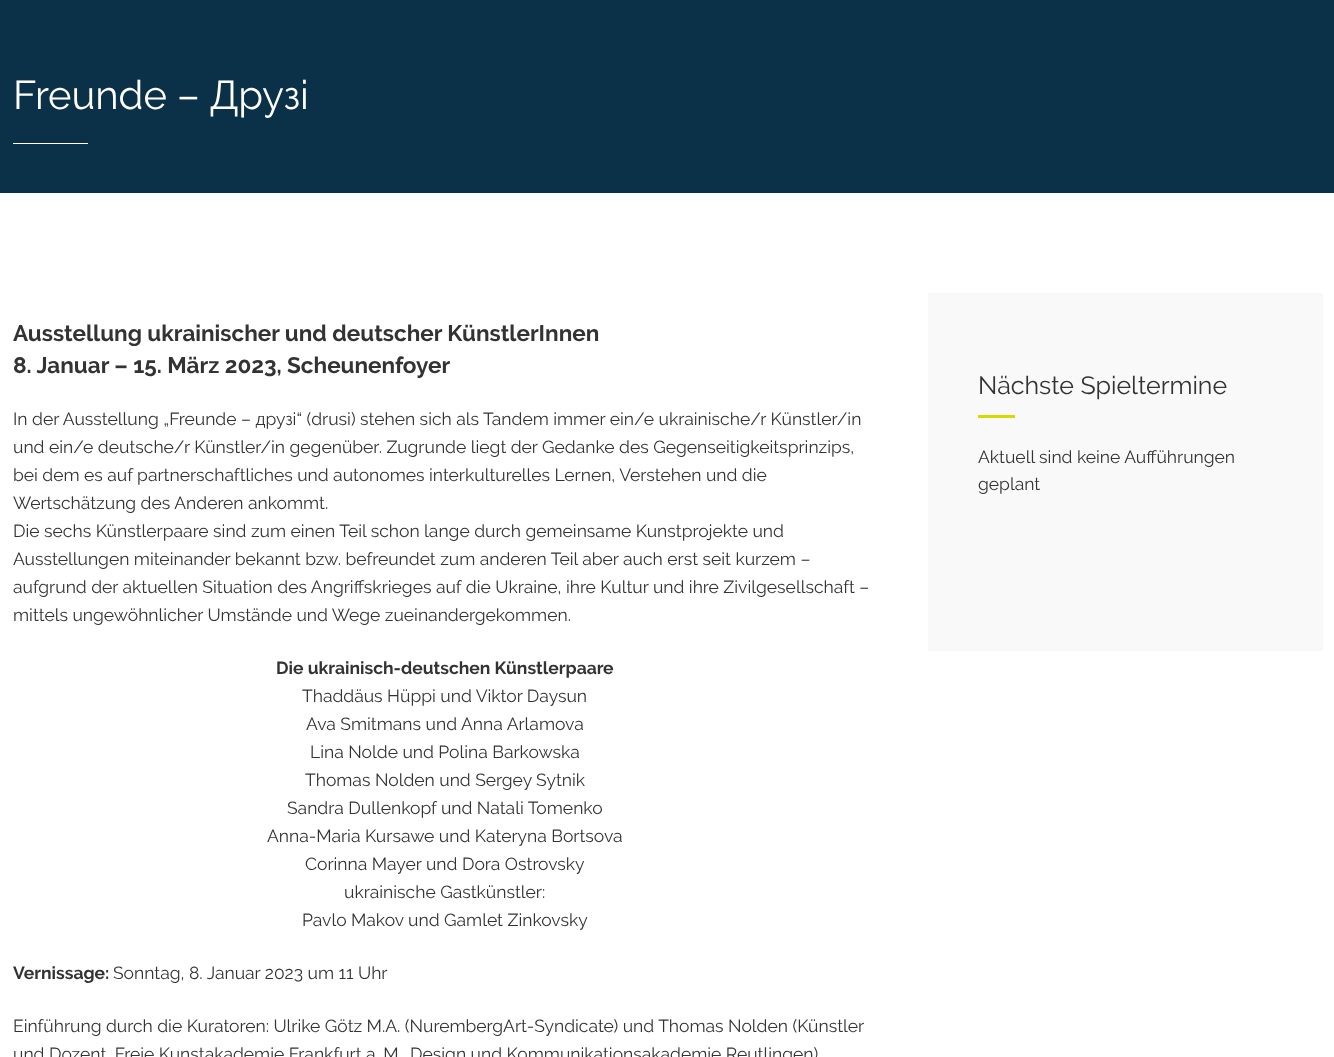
async function draw(canvas) {
  canvas.width = 1334
  canvas.height = 1057
  const ctx = canvas.getContext('2d')
  ctx.miterLimit = 4
  ctx.fontKerning = 'normal'

  ctx.fillStyle = '#fff'
  ctx.fillRect(0, 0, 1334, 1057)
  ctx.fillStyle = '#0b3149'
  ctx.fillRect(0, 0, 1334, 193)
  ctx.font = '40px Raleway'
  ctx.fillStyle = '#fff'
  ctx.fillText('Freunde – Друзі', 13, 109)
  ctx.fillRect(13, 143, 75, 1)
  ctx.font = 'bold 22.5px Raleway'
  ctx.fillStyle = '#333'
  ctx.fillText('Ausstellung ukrainischer und deutscher KünstlerInnen', 13, 341)
  ctx.fillText('8. Januar – 15. März 2023, Scheunenfoyer', 13, 373)
  ctx.font = '17.5px Raleway'
  ctx.fillText('In der Ausstellung „Freunde – друзі“ (drusi) stehen sich als Tandem immer ein/e ukrainische/r Künstler/in', 13, 425)
  ctx.fillText('und ein/e deutsche/r Künstler/in gegenüber. Zugrunde liegt der Gedanke des Gegenseitigkeitsprinzips,', 13, 453)
  ctx.fillText('bei dem es auf partnerschaftliches und autonomes interkulturelles Lernen, Verstehen und die', 13, 481)
  ctx.fillText('Wertschätzung des Anderen ankommt.', 13, 509)
  ctx.fillText('Die sechs Künstlerpaare sind zum einen Teil schon lange durch gemeinsame Kunstprojekte und', 13, 537)
  ctx.fillText('Ausstellungen miteinander bekannt bzw. befreundet zum anderen Teil aber auch erst seit kurzem –', 13, 565)
  ctx.fillText('aufgrund der aktuellen Situation des Angriffskrieges auf die Ukraine, ihre Kultur und ihre Zivilgesellschaft –', 13, 593)
  ctx.fillText('mittels ungewöhnlicher Umstände und Wege zueinandergekommen.', 13, 621)
  ctx.font = 'bold 17.5px Raleway'
  ctx.fillText('Die ukrainisch-deutschen Künstlerpaare', 276, 674)
  ctx.font = '17.5px Raleway'
  ctx.fillText('Thaddäus Hüppi und Viktor Daysun', 302, 702)
  ctx.fillText('Ava Smitmans und Anna Arlamova', 306, 730)
  ctx.fillText('Lina Nolde und Polina Barkowska', 310, 758)
  ctx.fillText('Thomas Nolden und Sergey Sytnik', 305, 786)
  ctx.fillText('Sandra Dullenkopf und Natali Tomenko', 287, 814)
  ctx.fillText('Anna-Maria Kursawe und Kateryna Bortsova', 267, 842)
  ctx.fillText('Corinna Mayer und Dora Ostrovsky', 305, 870)
  ctx.fillText('ukrainische Gastkünstler:', 344, 898)
  ctx.fillText('Pavlo Makov und Gamlet Zinkovsky', 302, 926)
  ctx.font = 'bold 17.5px Raleway'
  ctx.fillText('Vernissage:', 13, 979)
  ctx.font = '17.5px Raleway'
  ctx.fillText('Sonntag, 8. Januar 2023 um 11 Uhr', 113, 979)
  ctx.fillText('Einführung durch die Kuratoren: Ulrike Götz M.A. (NurembergArt-Syndicate) und Thomas Nolden (Künstler', 13, 1032)
  ctx.fillText('und Dozent, Freie Kunstakademie Frankfurt a. M', 13, 1060)
  ctx.fillText('Design und Kommunikationsakademie Reutlingen)', 410, 1060)
  ctx.fillStyle = '#f9f9f9'
  ctx.fillRect(928, 293, 395, 358)
  ctx.font = '25px Raleway'
  ctx.fillStyle = '#333'
  ctx.fillText('Nächste Spieltermine', 978, 394)
  ctx.fillStyle = '#d7da00'
  ctx.fillRect(978, 415, 37, 3)
  ctx.font = '17.5px Raleway'
  ctx.fillStyle = '#333'
  ctx.fillText('Aktuell sind keine Aufführungen', 978, 463)
  ctx.fillText('geplant', 978, 490)
}

draw(document.querySelector('canvas'))
